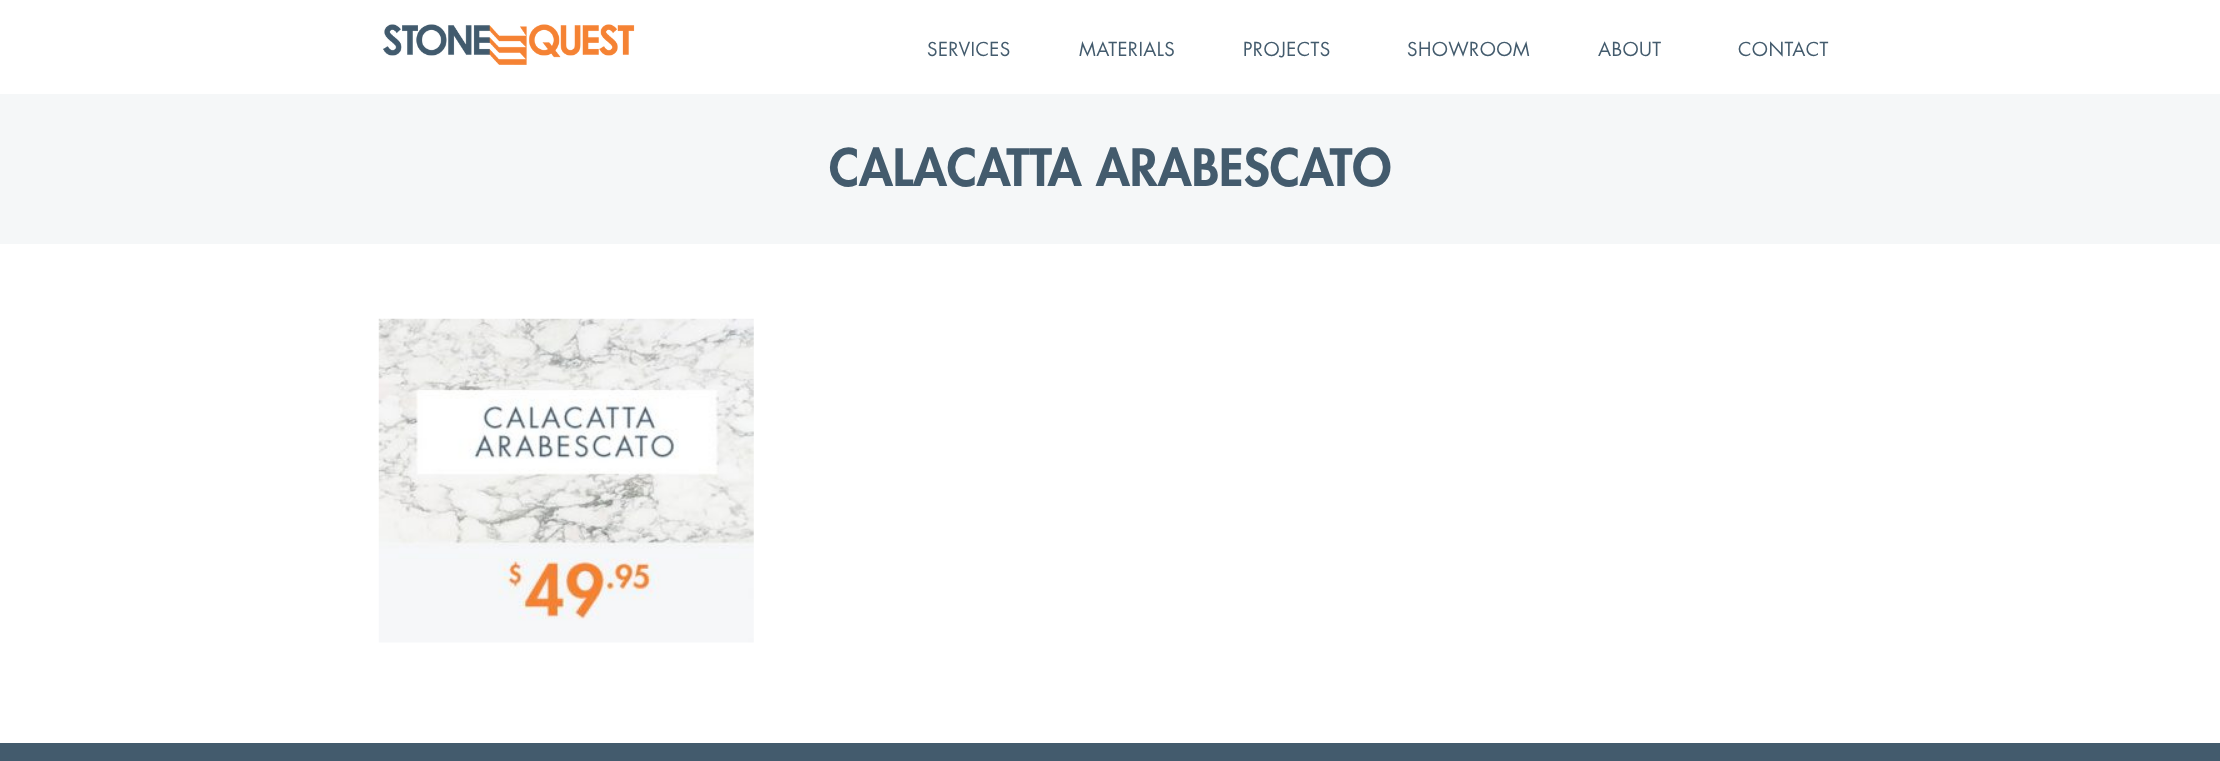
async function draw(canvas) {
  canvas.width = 2220
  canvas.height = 761
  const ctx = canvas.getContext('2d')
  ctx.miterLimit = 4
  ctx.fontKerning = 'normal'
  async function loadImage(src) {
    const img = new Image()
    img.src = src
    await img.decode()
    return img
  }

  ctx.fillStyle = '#fff'
  ctx.fillRect(0, 0, 2220, 761)
  ctx.drawImage(await loadImage('image0.png'), 383, 24, 252, 41)
  ctx.letterSpacing = '0.4px'
  ctx.font = '18.75px Futura'
  ctx.fillStyle = '#435b6d'
  ctx.fillText('SERVICES', 927, 56)
  ctx.fillText('MATERIALS', 1079, 56)
  ctx.fillText('PROJECTS', 1243, 56)
  ctx.fillText('SHOWROOM', 1407, 56)
  ctx.fillText('ABOUT', 1598, 56)
  ctx.fillText('CONTACT', 1738, 56)
  ctx.fillStyle = '#f5f7f8'
  ctx.fillRect(0, 94, 2220, 150)
  ctx.letterSpacing = '0px'
  ctx.font = '900 50px Futura'
  ctx.fillStyle = '#435b6d'
  ctx.fillText('CALACATTA ARABESCATO', 829, 186)
  ctx.drawImage(await loadImage('image1.png'), 378, 318, 376, 325)
  ctx.fillRect(0, 743, 2220, 18)
}

draw(document.querySelector('canvas'))
